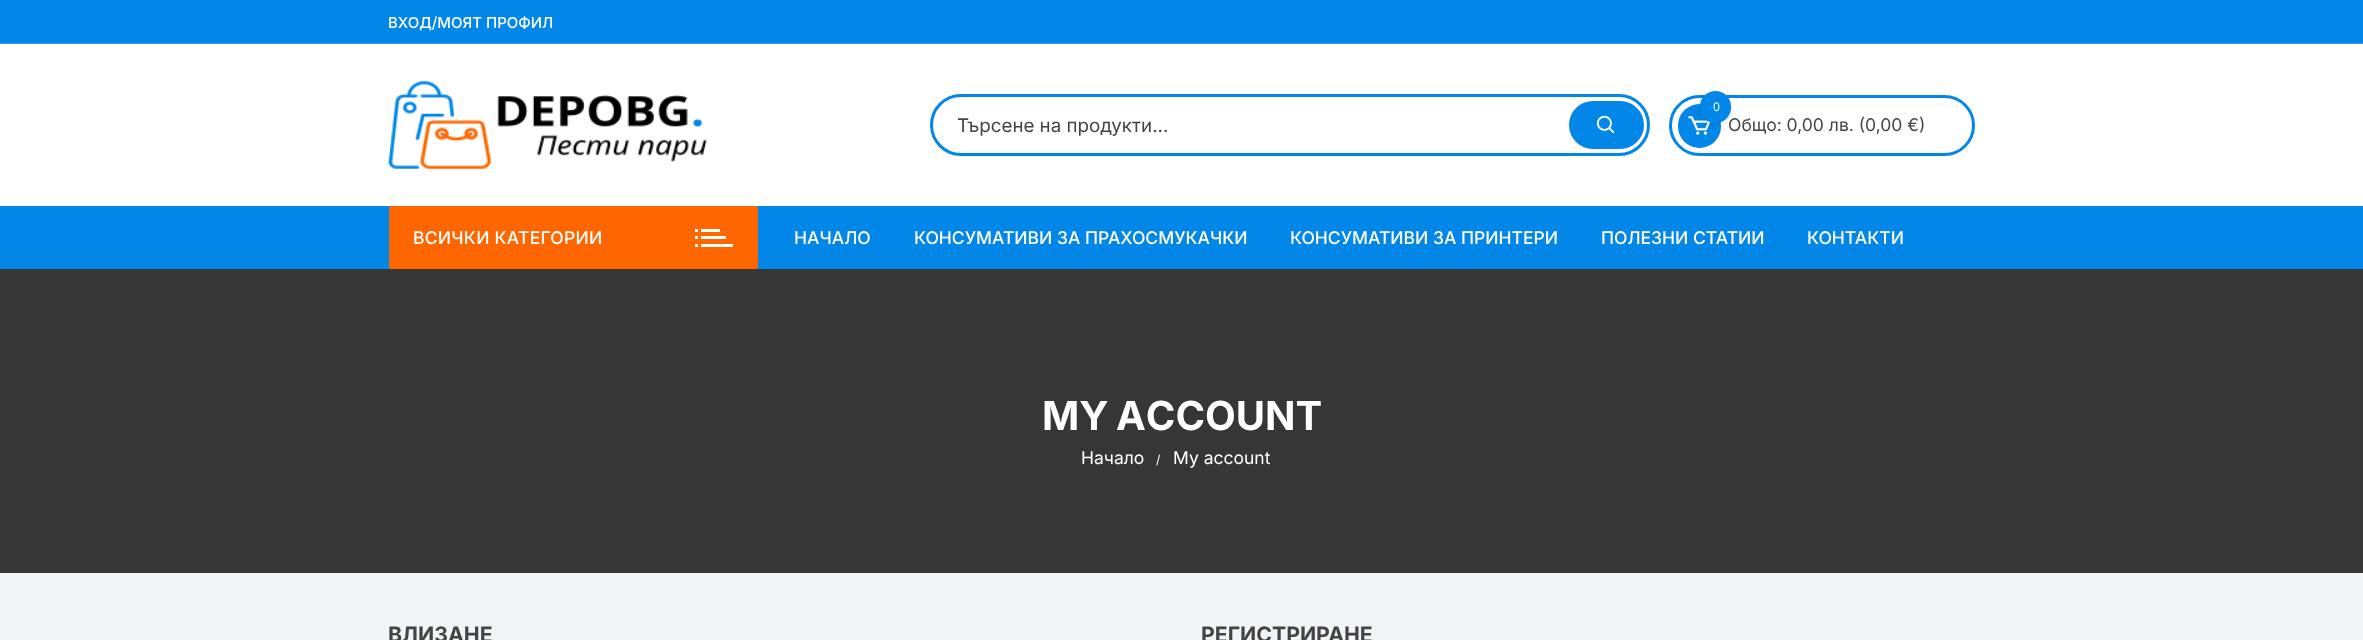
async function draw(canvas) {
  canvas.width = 2363
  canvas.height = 640
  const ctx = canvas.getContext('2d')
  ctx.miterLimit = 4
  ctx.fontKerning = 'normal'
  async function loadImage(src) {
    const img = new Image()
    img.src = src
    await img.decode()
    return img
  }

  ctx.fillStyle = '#f3f4f8'
  ctx.fillRect(0, 0, 2363, 640)
  ctx.fillStyle = '#fff'
  ctx.fillRect(0, 44, 2363, 162)
  ctx.fillStyle = '#0286e7'
  ctx.fillRect(0, 0, 2363, 43)
  ctx.fillStyle = '#359eec'
  ctx.fillRect(0, 43, 2363, 1)
  ctx.font = '500 15px Inter'
  ctx.fillStyle = '#fff'
  ctx.fillText('ВХОД/МОЯТ ПРОФИЛ', 388, 28)
  ctx.drawImage(await loadImage('image0.png'), 388, 81, 319, 88)
  ctx.beginPath()
  ctx.roundRect(931.5, 95.5, 717, 59, 29.5)
  ctx.strokeStyle = '#0286e7'
  ctx.lineWidth = 3
  ctx.stroke()
  ctx.font = '18.75px Inter'
  ctx.fillStyle = '#444'
  ctx.fillText('Търсене на продукти...', 957, 132)
  ctx.fillStyle = '#0286e7'
  ctx.beginPath()
  ctx.roundRect(1569, 101, 75, 48, 24)
  ctx.fill()
  ctx.drawImage(await loadImage('image1.png'), 1596, 115, 19, 19)
  ctx.beginPath()
  ctx.roundRect(1670.5, 96.5, 303, 58, 29)
  ctx.stroke()
  ctx.beginPath()
  ctx.roundRect(1678, 104, 43, 44, 21.5)
  ctx.fill()
  ctx.drawImage(await loadImage('image2.png'), 1688, 116, 23, 19)
  ctx.fillStyle = '#00000021'
  ctx.filter = 'blur(2px)'
  ctx.beginPath()
  ctx.roundRect(1700, 93, 31, 31, 15.5)
  ctx.fill()
  ctx.filter = 'none'
  ctx.font = '17.5px Inter'
  ctx.fillStyle = '#444'
  ctx.fillText('Общо: 0,00 лв. (0,00 €)', 1728, 131)
  ctx.fillStyle = '#0286e7'
  ctx.beginPath()
  ctx.roundRect(1700, 91, 31, 32, 15.5)
  ctx.fill()
  ctx.font = '12px Noto Sans'
  ctx.fillStyle = '#fff'
  ctx.fillText('0', 1713, 111)
  ctx.fillStyle = '#0286e7'
  ctx.fillRect(0, 206, 2363, 63)
  ctx.fillStyle = '#f60'
  ctx.beginPath()
  ctx.roundRect(389, 206, 369, 63, 2.5)
  ctx.fill()
  ctx.letterSpacing = '0.25px'
  ctx.font = '500 17.5px Inter'
  ctx.fillStyle = '#fff'
  ctx.fillText('ВСИЧКИ КАТЕГОРИИ', 413, 244)
  ctx.fillRect(701, 229, 19, 3)
  ctx.fillRect(695, 229, 3, 3)
  ctx.fillRect(701, 236, 25, 3)
  ctx.fillRect(695, 236, 3, 3)
  ctx.fillRect(701, 244, 32, 3)
  ctx.fillRect(695, 244, 3, 3)
  ctx.letterSpacing = '0px'
  ctx.fillText('НАЧАЛО', 794, 244)
  ctx.fillText('КОНСУМАТИВИ ЗА ПРАХОСМУКАЧКИ', 914, 244)
  ctx.fillText('КОНСУМАТИВИ ЗА ПРИНТЕРИ', 1290, 244)
  ctx.fillText('ПОЛЕЗНИ СТАТИИ', 1601, 244)
  ctx.fillText('КОНТАКТИ', 1807, 244)
  ctx.fillStyle = '#363636'
  ctx.fillRect(0, 269, 2363, 304)
  ctx.wordSpacing = '-2px'
  ctx.font = 'bold 40px Inter'
  ctx.fillStyle = '#fff'
  ctx.fillText('MY ACCOUNT', 1042, 430)
  ctx.wordSpacing = '0px'
  ctx.font = '17.5px Inter'
  ctx.fillText('Начало', 1081, 464)
  ctx.font = '12px Inter'
  ctx.fillText('/', 1156, 464)
  ctx.font = '17.5px Inter'
  ctx.fillText('My account', 1173, 464)
  ctx.font = 'bold 21.25px Inter'
  ctx.fillStyle = '#444'
  ctx.fillText('ВЛИЗАНЕ', 388, 642)
  ctx.fillText('РЕГИСТРИРАНЕ', 1201, 642)
}

draw(document.querySelector('canvas'))
